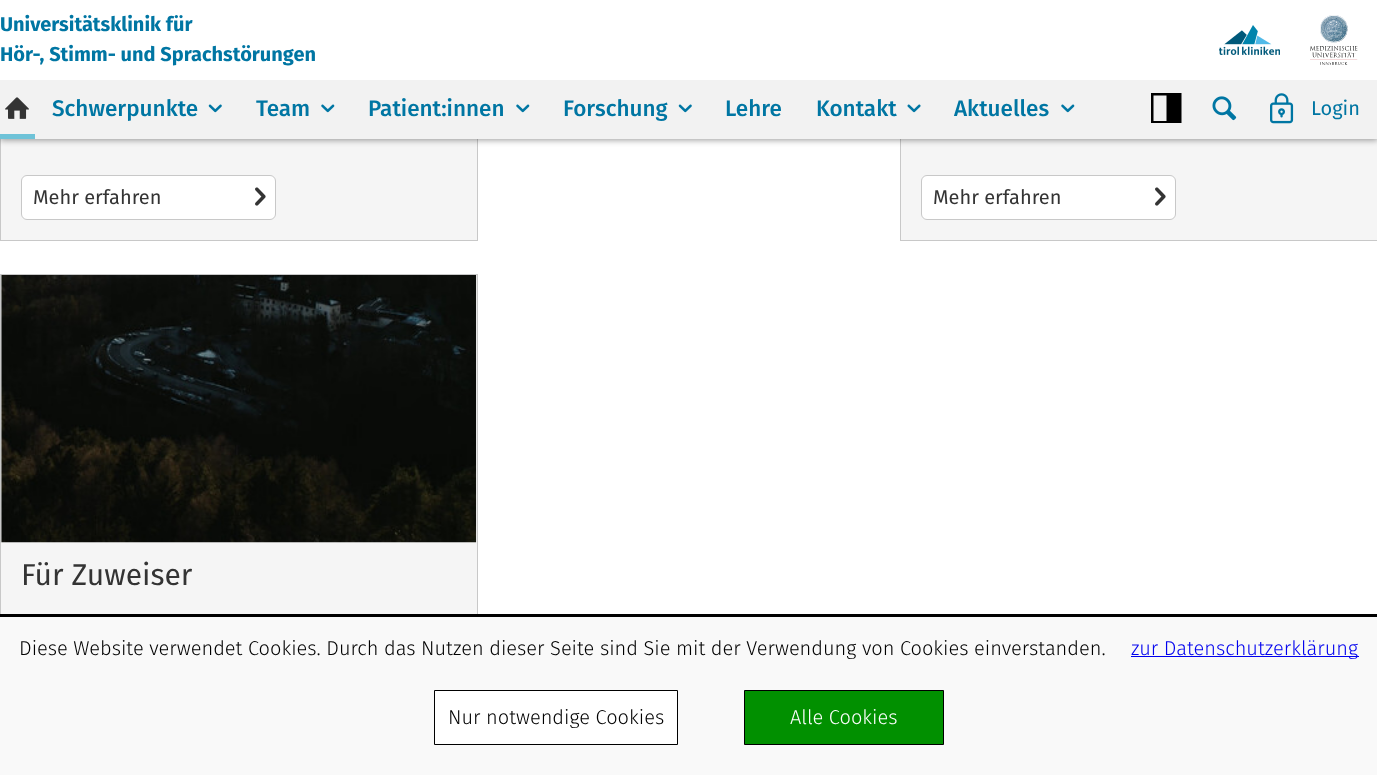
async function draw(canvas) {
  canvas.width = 1377
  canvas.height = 775
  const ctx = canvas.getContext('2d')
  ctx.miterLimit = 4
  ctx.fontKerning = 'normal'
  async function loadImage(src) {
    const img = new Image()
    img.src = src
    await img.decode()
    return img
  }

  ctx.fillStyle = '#fff'
  ctx.fillRect(0, 0, 1377, 775)
  ctx.fillStyle = '#f5f5f5'
  ctx.fillRect(1, 139, 476, 101)
  ctx.strokeStyle = '#c8c8c8'
  ctx.strokeRect(0.5, -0.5, 477, 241)
  ctx.fillRect(901, 139, 476, 101)
  ctx.strokeRect(900.5, -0.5, 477, 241)
  ctx.fillStyle = '#00000066'
  ctx.filter = 'blur(3px)'
  ctx.beginPath()
  ctx.rect(0, 1, 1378, 139)
  ctx.fill()
  ctx.filter = 'none'
  ctx.fillStyle = '#fff'
  ctx.fillRect(0, 0, 1377, 80)
  ctx.font = 'bold 20px Fira Sans'
  ctx.fillStyle = '#0076a3'
  ctx.fillText('Universitätsklinik für', 0, 31)
  ctx.fillText('Hör-, Stimm- und Sprachstörungen', 0, 61)
  ctx.drawImage(await loadImage('image0.png'), 1219, 25, 61, 30)
  ctx.drawImage(await loadImage('image1.png'), 1310, 15, 48, 50)
  ctx.fillStyle = '#f2f2f2'
  ctx.fillRect(0, 80, 1377, 59)
  ctx.drawImage(await loadImage('image2.png'), 5, 97, 24, 22)
  ctx.fillStyle = '#6fc3d8'
  ctx.fillRect(0, 134, 35, 5)
  ctx.font = '500 22.5px Fira Sans'
  ctx.fillStyle = '#0076a3'
  ctx.fillText('Schwerpunkte', 52, 116)
  ctx.drawImage(await loadImage('image3.png'), 208, 104, 14, 9)
  ctx.fillText('Team', 256, 116)
  ctx.drawImage(await loadImage('image4.png'), 321, 104, 14, 9)
  ctx.fillText('Patient:innen', 368, 116)
  ctx.drawImage(await loadImage('image4.png'), 516, 104, 14, 9)
  ctx.fillText('Forschung', 563, 116)
  ctx.drawImage(await loadImage('image3.png'), 678, 104, 14, 9)
  ctx.fillText('Lehre', 725, 116)
  ctx.fillText('Kontakt', 816, 116)
  ctx.drawImage(await loadImage('image5.png'), 907, 104, 14, 9)
  ctx.fillText('Aktuelles', 954, 116)
  ctx.drawImage(await loadImage('image4.png'), 1061, 104, 14, 9)
  ctx.fillStyle = '#000'
  ctx.beginPath()
  ctx.moveTo(1151, 93)
  ctx.lineTo(1151, 123)
  ctx.lineTo(1181.5, 123)
  ctx.lineTo(1181.5, 93)
  ctx.closePath()
  ctx.moveTo(1166.5, 121)
  ctx.lineTo(1153.5, 121)
  ctx.lineTo(1153.5, 95.5)
  ctx.lineTo(1166.5, 95.5)
  ctx.closePath()
  ctx.fill()
  ctx.drawImage(await loadImage('image6.png'), 1212, 96, 25, 25)
  ctx.drawImage(await loadImage('image7.png'), 1270, 93, 24, 31)
  ctx.font = '20px Fira Sans'
  ctx.fillStyle = '#0076a3'
  ctx.fillText('Login', 1311, 115)
  ctx.fillStyle = '#fff'
  ctx.beginPath()
  ctx.roundRect(21.5, 175.5, 254, 44, 5.5)
  ctx.fill()
  ctx.stroke()
  ctx.fillStyle = '#343434'
  ctx.fillText('Mehr erfahren', 33, 204)
  ctx.drawImage(await loadImage('image8.png'), 255, 187, 11, 19)
  ctx.fillStyle = '#fff'
  ctx.beginPath()
  ctx.roundRect(921.5, 175.5, 254, 44, 5.5)
  ctx.fill()
  ctx.stroke()
  ctx.fillStyle = '#343434'
  ctx.fillText('Mehr erfahren', 933, 204)
  ctx.drawImage(await loadImage('image8.png'), 1155, 187, 11, 19)
  ctx.fillStyle = '#f5f5f5'
  ctx.fillRect(1, 275, 476, 339)
  ctx.strokeRect(0.5, 274.5, 477, 416)
  ctx.drawImage(await loadImage('image9.png'), 1, 275, 476, 268)
  ctx.font = '30px Fira Sans'
  ctx.fillStyle = '#343434'
  ctx.fillText('Für Zuweiser', 21, 585)
  ctx.fillStyle = '#f9f9f9'
  ctx.fillRect(0, 617, 1377, 158)
  ctx.fillStyle = '#000'
  ctx.fillRect(0, 614, 1377, 3)
  ctx.font = '300 20px Fira Sans'
  ctx.fillText('Diese Website verwendet Cookies. Durch das Nutzen dieser Seite sind Sie mit der Verwendung von Cookies einverstanden.', 19, 655)
  ctx.fillStyle = '#00e'
  ctx.fillRect(1131, 656, 228, 1)
  ctx.fillText('zur Datenschutzerklärung', 1131, 655)
  ctx.fillStyle = '#fff'
  ctx.beginPath()
  ctx.rect(434.5, 690.5, 243, 54)
  ctx.fill()
  ctx.strokeStyle = '#000'
  ctx.stroke()
  ctx.fillStyle = '#000'
  ctx.fillText('Nur notwendige Cookies', 448, 724)
  ctx.fillStyle = '#019000'
  ctx.beginPath()
  ctx.rect(744.5, 690.5, 199, 54)
  ctx.fill()
  ctx.stroke()
  ctx.fillStyle = '#fff'
  ctx.fillText('Alle Cookies', 790, 724)
}

draw(document.querySelector('canvas'))
